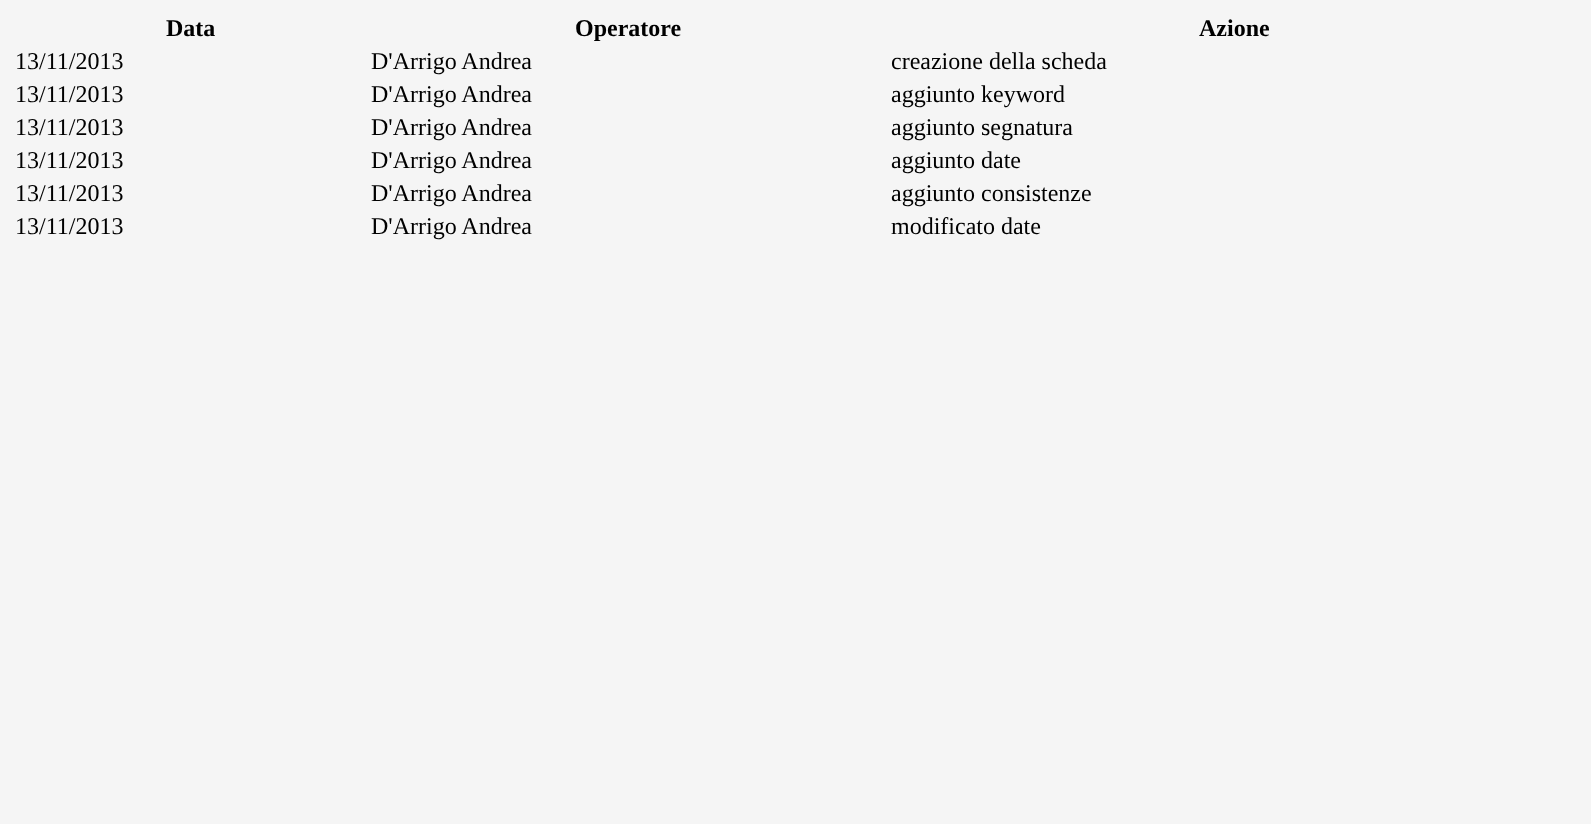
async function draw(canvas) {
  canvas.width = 1591
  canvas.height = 824
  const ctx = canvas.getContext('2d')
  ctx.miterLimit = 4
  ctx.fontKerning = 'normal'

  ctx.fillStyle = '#f5f5f5'
  ctx.fillRect(0, 0, 1591, 824)
  ctx.font = 'bold 24px Liberation Serif'
  ctx.fillStyle = '#000'
  ctx.fillText('Data', 166, 36)
  ctx.fillText('Operatore', 575, 36)
  ctx.fillText('Azione', 1199, 36)
  ctx.font = '24px Liberation Serif'
  ctx.fillText('13/11/2013', 15, 69)
  ctx.fillText('D\'Arrigo Andrea', 371, 69)
  ctx.fillText('creazione della scheda', 891, 69)
  ctx.fillText('13/11/2013', 15, 102)
  ctx.fillText('D\'Arrigo Andrea', 371, 102)
  ctx.fillText('aggiunto keyword', 891, 102)
  ctx.fillText('13/11/2013', 15, 135)
  ctx.fillText('D\'Arrigo Andrea', 371, 135)
  ctx.fillText('aggiunto segnatura', 891, 135)
  ctx.fillText('13/11/2013', 15, 168)
  ctx.fillText('D\'Arrigo Andrea', 371, 168)
  ctx.fillText('aggiunto date', 891, 168)
  ctx.fillText('13/11/2013', 15, 201)
  ctx.fillText('D\'Arrigo Andrea', 371, 201)
  ctx.fillText('aggiunto consistenze', 891, 201)
  ctx.fillText('13/11/2013', 15, 234)
  ctx.fillText('D\'Arrigo Andrea', 371, 234)
  ctx.fillText('modificato date', 891, 234)
}

draw(document.querySelector('canvas'))
